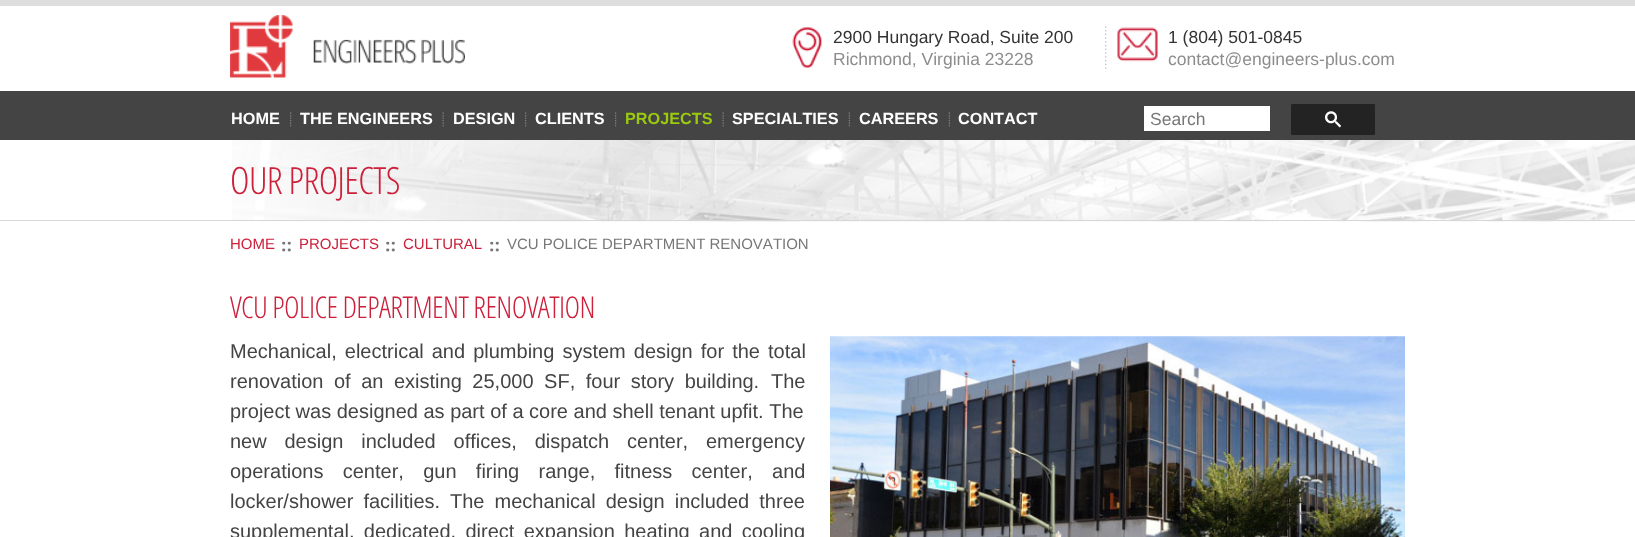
async function draw(canvas) {
  canvas.width = 1635
  canvas.height = 537
  const ctx = canvas.getContext('2d')
  ctx.miterLimit = 4
  ctx.fontKerning = 'none'
  async function loadImage(src) {
    const img = new Image()
    img.src = src
    await img.decode()
    return img
  }

  ctx.fillStyle = '#fff'
  ctx.fillRect(0, 0, 1635, 537)
  ctx.fillStyle = '#dedede'
  ctx.fillRect(0, 0, 1635, 6)
  ctx.drawImage(await loadImage('image0.png'), 230, 15, 235, 63)
  ctx.drawImage(await loadImage('image1.png'), 792, 27, 30, 41)
  ctx.font = '17.5px Liberation Sans'
  ctx.fillStyle = '#333'
  ctx.fillText('2900 Hungary Road, Suite 200', 833, 43)
  ctx.fillStyle = '#8d8d8d'
  ctx.fillText('Richmond, Virginia 23228', 833, 65)
  ctx.drawImage(await loadImage('image2.png'), 1105, 26, 2, 46)
  ctx.drawImage(await loadImage('image3.png'), 1117, 27, 41, 35)
  ctx.fillStyle = '#333'
  ctx.fillText('1 (804) 501-0845', 1168, 43)
  ctx.fillStyle = '#8d8d8d'
  ctx.fillText('contact@engineers-plus.com', 1168, 65)
  ctx.fillStyle = '#444'
  ctx.fillRect(0, 91, 1635, 49)
  ctx.font = 'bold 16.25px Liberation Sans'
  ctx.fillStyle = '#fff'
  ctx.fillText('HOME', 231, 124)
  ctx.drawImage(await loadImage('image4.png'), 290, 112, 2, 15)
  ctx.fillText('THE ENGINEERS', 300, 124)
  ctx.drawImage(await loadImage('image5.png'), 442, 112, 2, 15)
  ctx.fillText('DESIGN', 453, 124)
  ctx.drawImage(await loadImage('image4.png'), 525, 112, 2, 15)
  ctx.fillText('CLIENTS', 535, 124)
  ctx.drawImage(await loadImage('image4.png'), 615, 112, 2, 15)
  ctx.fillStyle = '#9ac910'
  ctx.fillText('PROJECTS', 625, 124)
  ctx.drawImage(await loadImage('image5.png'), 722, 112, 2, 15)
  ctx.fillStyle = '#fff'
  ctx.fillText('SPECIALTIES', 732, 124)
  ctx.drawImage(await loadImage('image6.png'), 848, 112, 2, 15)
  ctx.fillText('CAREERS', 859, 124)
  ctx.drawImage(await loadImage('image6.png'), 948, 112, 2, 15)
  ctx.fillText('CONTACT', 958, 124)
  ctx.fillRect(1144, 106, 126, 25)
  ctx.font = '17.5px Liberation Sans'
  ctx.fillStyle = '#777'
  ctx.fillText('Search', 1150, 125)
  ctx.fillStyle = '#232323'
  ctx.beginPath()
  ctx.roundRect(1290.5, 103.5, 85, 32, 2)
  ctx.fill()
  ctx.strokeStyle = '#444'
  ctx.stroke()
  ctx.drawImage(await loadImage('image7.png'), 1325, 111, 16, 17)
  ctx.drawImage(await loadImage('image8.png'), 232, 140, 1403, 82)
  ctx.fillStyle = '#d7d7d7'
  ctx.fillRect(0, 220, 1635, 1)
  ctx.letterSpacing = '-0.6px'
  ctx.font = '300 37.5px Open Sans Condensed'
  ctx.fillStyle = '#cc203b'
  ctx.fillText('OUR PROJECTS', 230, 194)
  ctx.letterSpacing = '0px'
  ctx.font = '15px Liberation Sans'
  ctx.fillText('HOME', 230, 249)
  ctx.direction = 'rtl'
  ctx.font = '28px FreeSans'
  ctx.fillStyle = '#777'
  ctx.fillText('܃܃', 292, 254)
  ctx.direction = 'ltr'
  ctx.font = '15px Liberation Sans'
  ctx.fillStyle = '#cc203b'
  ctx.fillText('PROJECTS', 299, 249)
  ctx.direction = 'rtl'
  ctx.font = '28px FreeSans'
  ctx.fillStyle = '#777'
  ctx.fillText('܃܃', 396, 254)
  ctx.direction = 'ltr'
  ctx.font = '15px Liberation Sans'
  ctx.fillStyle = '#cc203b'
  ctx.fillText('CULTURAL', 403, 249)
  ctx.direction = 'rtl'
  ctx.font = '28px FreeSans'
  ctx.fillStyle = '#777'
  ctx.fillText('܃܃', 500, 254)
  ctx.direction = 'ltr'
  ctx.font = '15px Liberation Sans'
  ctx.fillText('VCU POLICE DEPARTMENT RENOVATION', 507, 249)
  ctx.letterSpacing = '-0.6px'
  ctx.font = '300 30px Open Sans Condensed'
  ctx.fillStyle = '#cc203b'
  ctx.fillText('VCU POLICE DEPARTMENT RENOVATION', 230, 318)
  ctx.letterSpacing = '0px'
  ctx.wordSpacing = '2.5px'
  ctx.font = '20px Liberation Sans'
  ctx.fillStyle = '#444'
  ctx.fillText('Mechanical, electrical and plumbing system design for the total', 230, 358)
  ctx.wordSpacing = '5px'
  ctx.fillText('renovation of an existing 25,000 SF, four story building.', 230, 388)
  ctx.wordSpacing = '0px'
  ctx.fillText('The', 771, 388)
  ctx.fillText('project was designed as part of a core and shell tenant upfit. The', 230, 418)
  ctx.wordSpacing = '12.25px'
  ctx.fillText('new design included offices, dispatch center, emergency', 230, 448)
  ctx.wordSpacing = '13.75px'
  ctx.fillText('operations center, gun firing range, fitness center, and', 230, 478)
  ctx.wordSpacing = '4.5px'
  ctx.fillText('locker/shower facilities.', 230, 508)
  ctx.fillText('The mechanical design included three', 450, 508)
  ctx.wordSpacing = '3.75px'
  ctx.fillText('supplemental, dedicated, direct expansion heating and cooling', 230, 538)
  ctx.drawImage(await loadImage('image9.png'), 830, 336, 575, 201)
}

draw(document.querySelector('canvas'))
